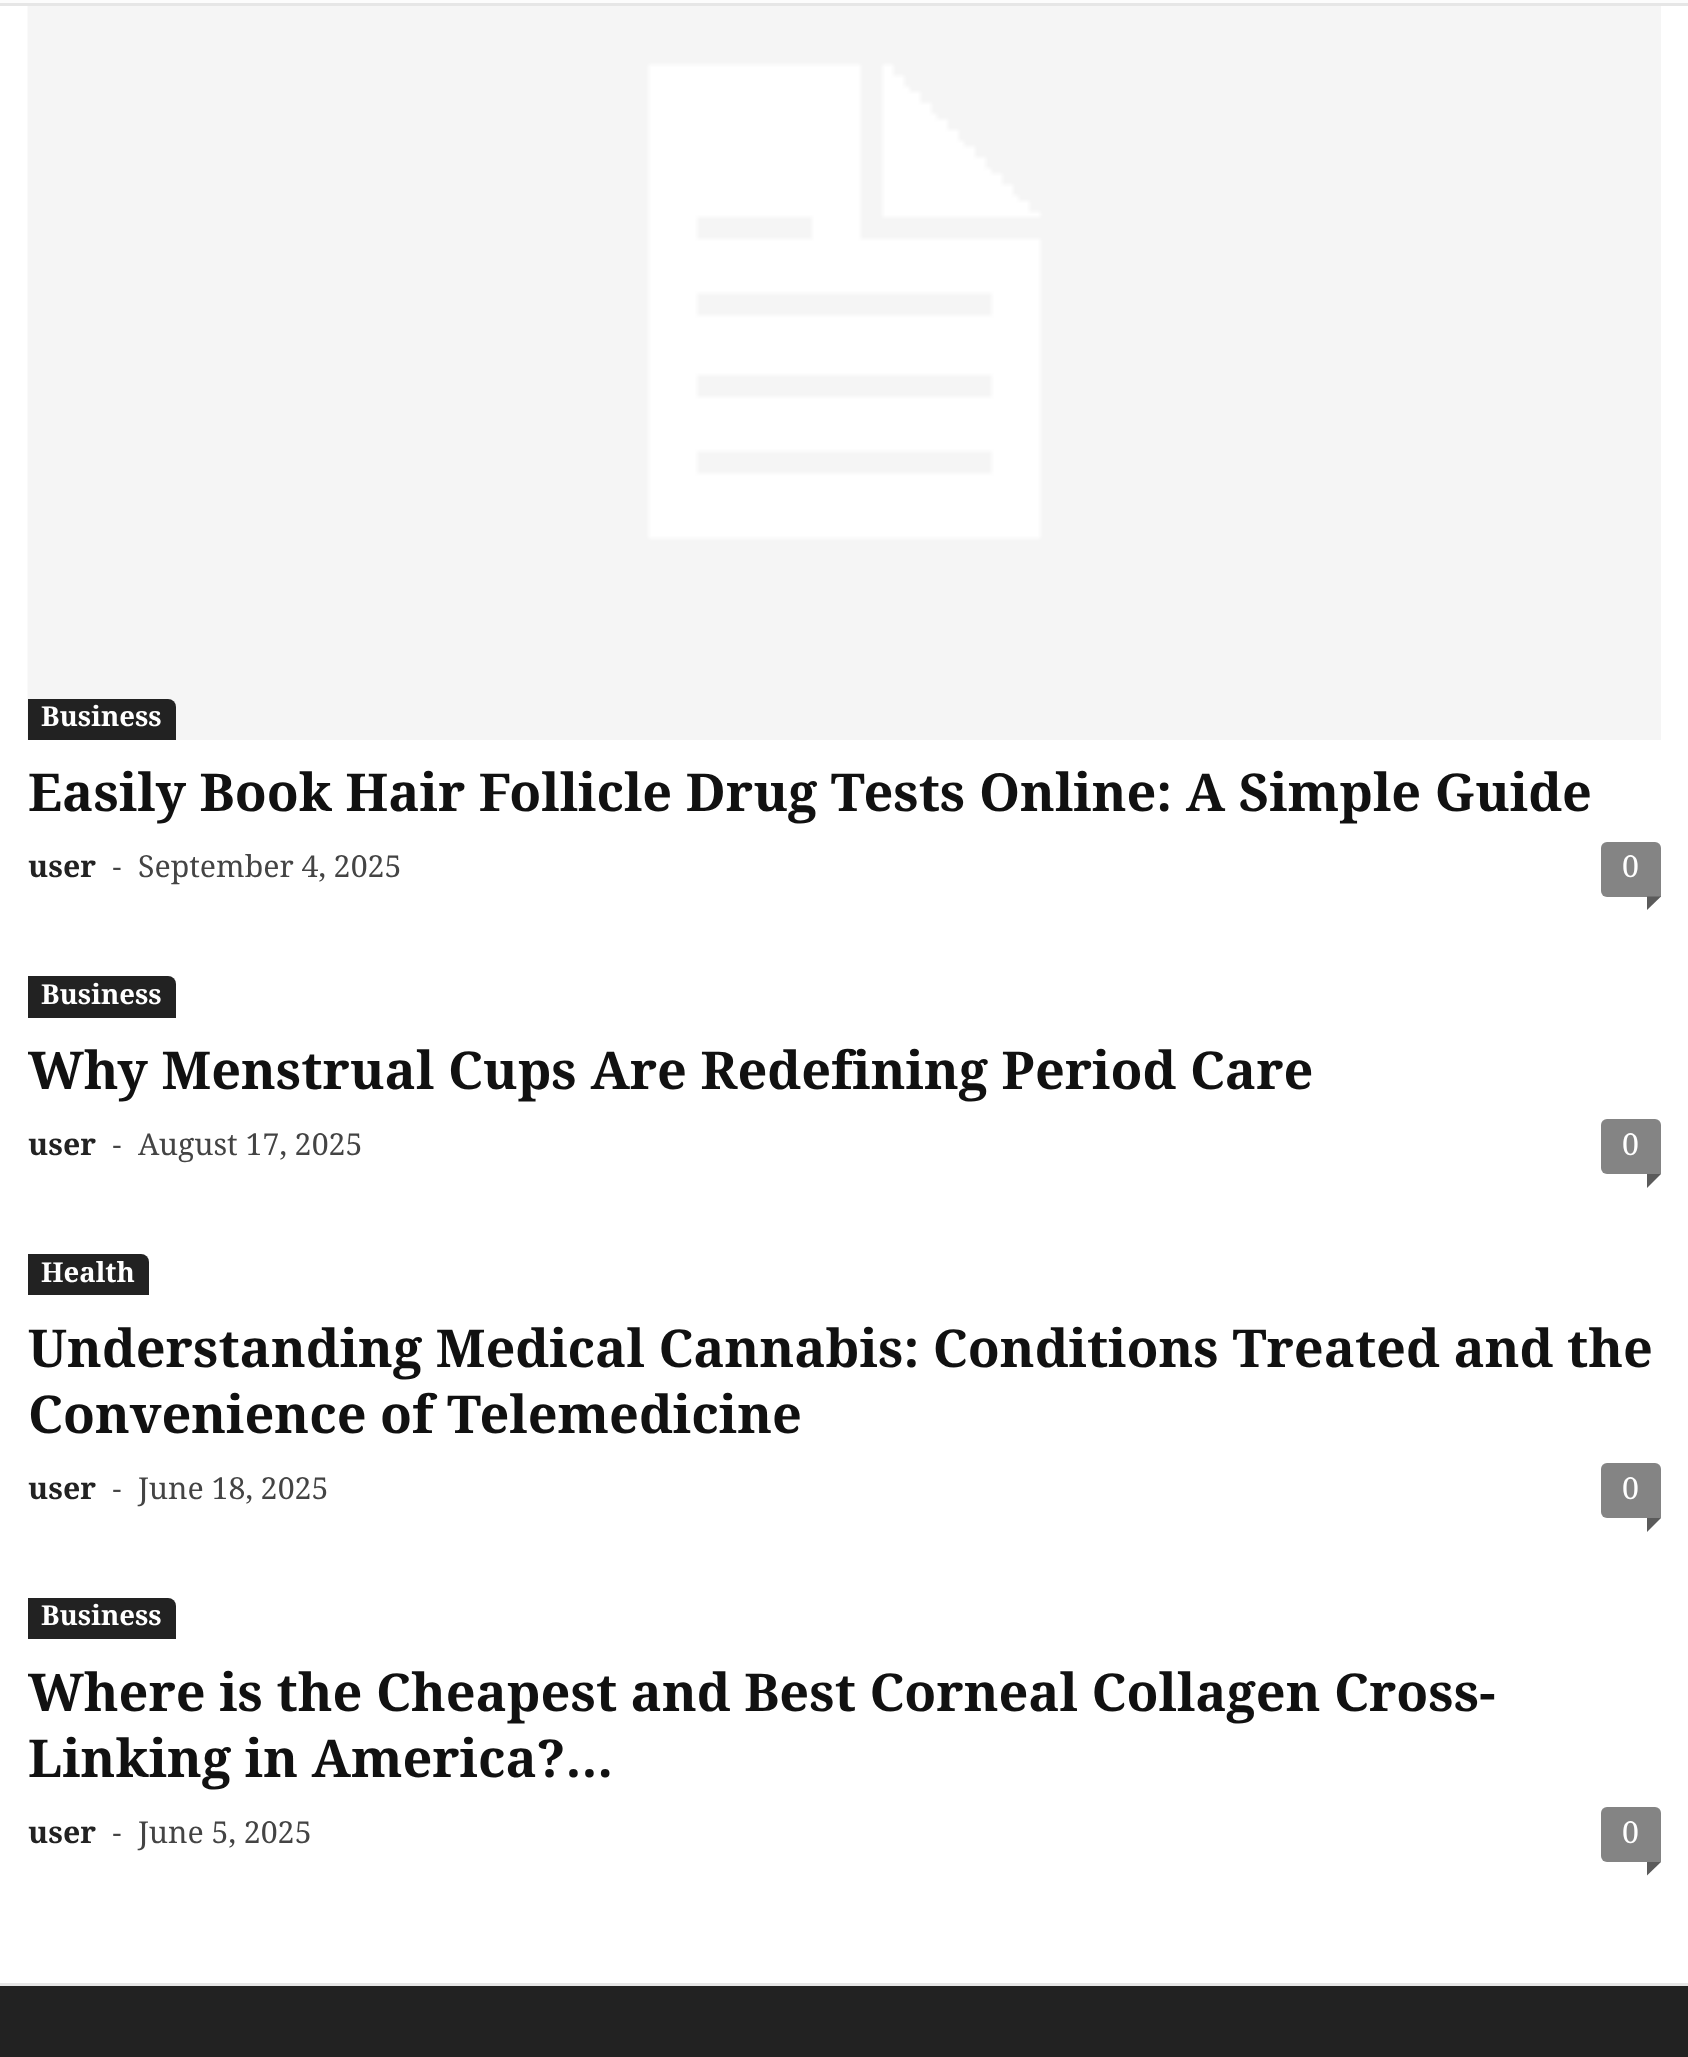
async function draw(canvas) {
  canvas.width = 1688
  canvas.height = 2057
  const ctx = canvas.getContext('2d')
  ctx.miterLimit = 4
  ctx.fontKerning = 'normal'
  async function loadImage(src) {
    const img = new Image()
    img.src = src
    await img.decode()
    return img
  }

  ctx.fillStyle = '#222'
  ctx.fillRect(0, 0, 1688, 2057)
  ctx.fillStyle = '#fcfcfc'
  ctx.fillRect(0, 0, 1688, 3)
  ctx.fillStyle = '#e6e6e6'
  ctx.fillRect(0, 3, 1688, 3)
  ctx.fillStyle = '#fff'
  ctx.fillRect(0, 6, 1688, 1977)
  ctx.fillStyle = '#e6e6e6'
  ctx.fillRect(0, 1983, 1688, 3)
  ctx.drawImage(await loadImage('image0.png'), 27, 6, 1634, 734)
  ctx.fillStyle = '#222'
  ctx.beginPath()
  ctx.roundRect(28, 699, 148, 41, [0, 8, 0, 0])
  ctx.fill()
  ctx.font = 'bold 27.5px Droid Serif'
  ctx.fillStyle = '#fff'
  ctx.fillText('Business', 41, 726)
  ctx.font = 'bold 52.25px Droid Serif'
  ctx.fillStyle = '#111'
  ctx.fillText('Easily Book Hair Follicle Drug Tests Online: A Simple Guide', 28, 811)
  ctx.font = 'bold 30.25px Droid Serif'
  ctx.fillStyle = '#222'
  ctx.fillText('user', 28, 877)
  ctx.font = '30.25px Open Sans'
  ctx.fillStyle = '#444'
  ctx.fillText('-', 112, 877)
  ctx.font = '30.25px Droid Serif'
  ctx.fillText('September 4, 2025', 138, 877)
  ctx.fillStyle = '#848484'
  ctx.beginPath()
  ctx.roundRect(1601, 842, 60, 55, [6, 6, 0, 6])
  ctx.fill()
  ctx.fillStyle = '#fff'
  ctx.fillText('0', 1622, 877)
  ctx.fillStyle = '#5b5b5b'
  ctx.beginPath()
  ctx.moveTo(1647, 896.5)
  ctx.lineTo(1661, 896.5)
  ctx.lineTo(1647, 910)
  ctx.closePath()
  ctx.fill()
  ctx.fillStyle = '#222'
  ctx.beginPath()
  ctx.roundRect(28, 976, 148, 42, [0, 8, 0, 0])
  ctx.fill()
  ctx.font = 'bold 27.5px Droid Serif'
  ctx.fillStyle = '#fff'
  ctx.fillText('Business', 41, 1004)
  ctx.font = 'bold 52.25px Droid Serif'
  ctx.fillStyle = '#111'
  ctx.fillText('Why Menstrual Cups Are Redefining Period Care', 28, 1089)
  ctx.font = 'bold 30.25px Droid Serif'
  ctx.fillStyle = '#222'
  ctx.fillText('user', 28, 1155)
  ctx.font = '30.25px Open Sans'
  ctx.fillStyle = '#444'
  ctx.fillText('-', 112, 1155)
  ctx.font = '30.25px Droid Serif'
  ctx.fillText('August 17, 2025', 138, 1155)
  ctx.fillStyle = '#848484'
  ctx.beginPath()
  ctx.roundRect(1601, 1119, 60, 55, [6, 6, 0, 6])
  ctx.fill()
  ctx.fillStyle = '#fff'
  ctx.fillText('0', 1622, 1155)
  ctx.fillStyle = '#5b5b5b'
  ctx.beginPath()
  ctx.moveTo(1647, 1174)
  ctx.lineTo(1661, 1174)
  ctx.lineTo(1647, 1188)
  ctx.closePath()
  ctx.fill()
  ctx.fillStyle = '#222'
  ctx.beginPath()
  ctx.roundRect(28, 1254, 121, 41, [0, 8, 0, 0])
  ctx.fill()
  ctx.font = 'bold 27.5px Droid Serif'
  ctx.fillStyle = '#fff'
  ctx.fillText('Health', 41, 1282)
  ctx.font = 'bold 52.25px Droid Serif'
  ctx.fillStyle = '#111'
  ctx.fillText('Understanding Medical Cannabis: Conditions Treated and the', 28, 1367)
  ctx.fillText('Convenience of Telemedicine', 28, 1433)
  ctx.font = 'bold 30.25px Droid Serif'
  ctx.fillStyle = '#222'
  ctx.fillText('user', 28, 1499)
  ctx.font = '30.25px Open Sans'
  ctx.fillStyle = '#444'
  ctx.fillText('-', 112, 1499)
  ctx.font = '30.25px Droid Serif'
  ctx.fillText('June 18, 2025', 138, 1499)
  ctx.fillStyle = '#848484'
  ctx.beginPath()
  ctx.roundRect(1601, 1463, 60, 55, [6, 6, 0, 6])
  ctx.fill()
  ctx.fillStyle = '#fff'
  ctx.fillText('0', 1622, 1499)
  ctx.fillStyle = '#5b5b5b'
  ctx.beginPath()
  ctx.moveTo(1647, 1518)
  ctx.lineTo(1661, 1518)
  ctx.lineTo(1647, 1532)
  ctx.closePath()
  ctx.fill()
  ctx.fillStyle = '#222'
  ctx.beginPath()
  ctx.roundRect(28, 1598, 148, 41, [0, 8, 0, 0])
  ctx.fill()
  ctx.font = 'bold 27.5px Droid Serif'
  ctx.fillStyle = '#fff'
  ctx.fillText('Business', 41, 1625)
  ctx.font = 'bold 52.25px Droid Serif'
  ctx.fillStyle = '#111'
  ctx.fillText('Where is the Cheapest and Best Corneal Collagen Cross-', 28, 1711)
  ctx.fillText('Linking in America?...', 28, 1777)
  ctx.font = 'bold 30.25px Droid Serif'
  ctx.fillStyle = '#222'
  ctx.fillText('user', 28, 1843)
  ctx.font = '30.25px Open Sans'
  ctx.fillStyle = '#444'
  ctx.fillText('-', 112, 1843)
  ctx.font = '30.25px Droid Serif'
  ctx.fillText('June 5, 2025', 138, 1843)
  ctx.fillStyle = '#848484'
  ctx.beginPath()
  ctx.roundRect(1601, 1807, 60, 55, [6, 6, 0, 6])
  ctx.fill()
  ctx.fillStyle = '#fff'
  ctx.fillText('0', 1622, 1843)
  ctx.fillStyle = '#5b5b5b'
  ctx.beginPath()
  ctx.moveTo(1647, 1862)
  ctx.lineTo(1661, 1862)
  ctx.lineTo(1647, 1875.5)
  ctx.closePath()
  ctx.fill()
}

draw(document.querySelector('canvas'))
